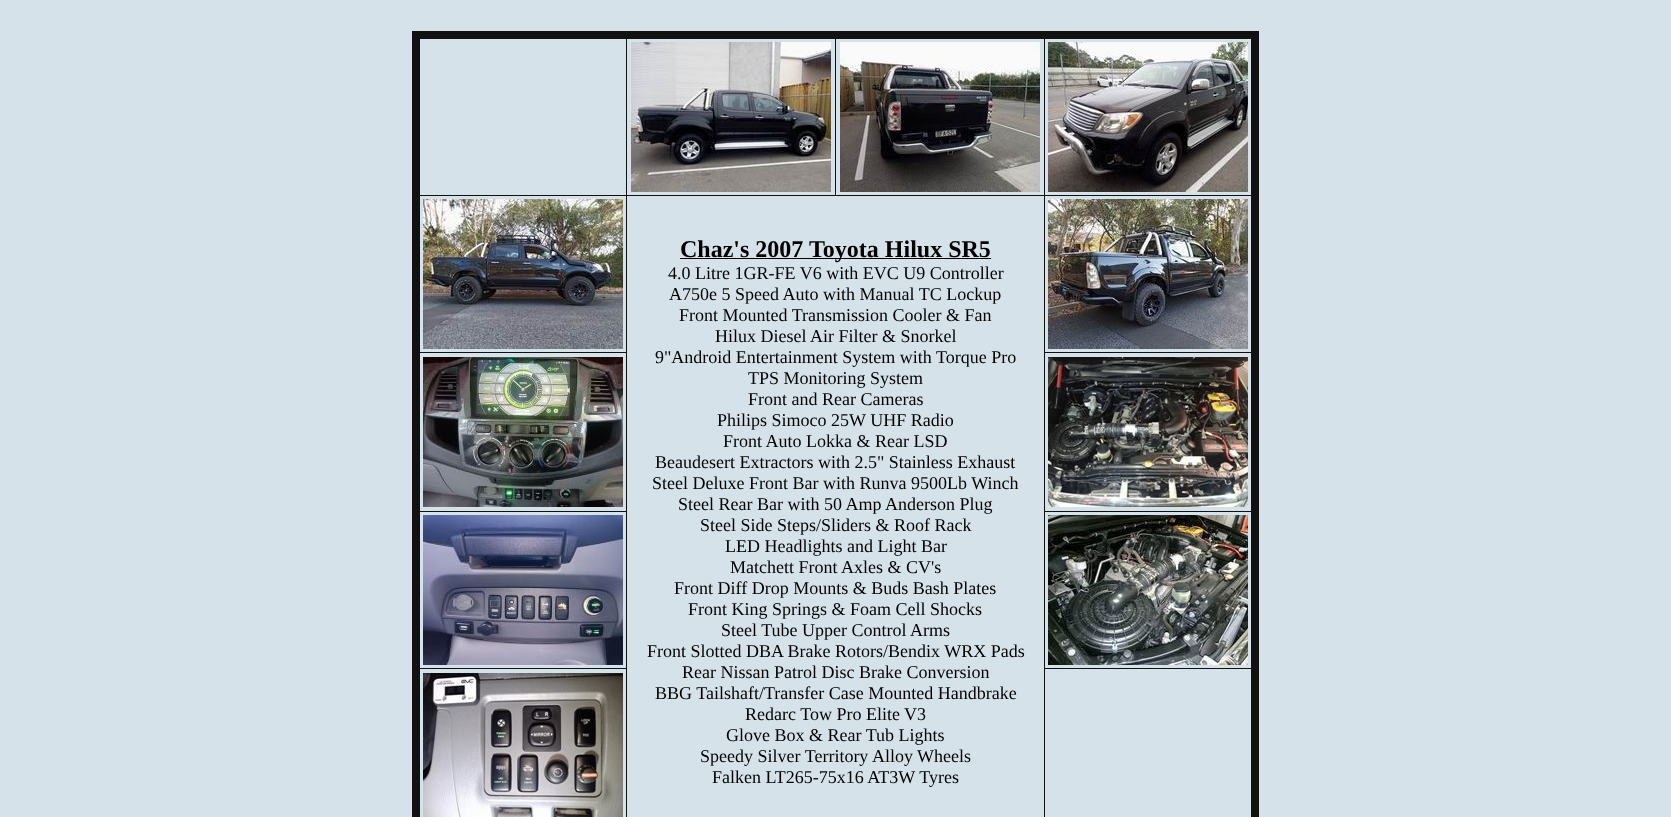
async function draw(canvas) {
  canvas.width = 1671
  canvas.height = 817
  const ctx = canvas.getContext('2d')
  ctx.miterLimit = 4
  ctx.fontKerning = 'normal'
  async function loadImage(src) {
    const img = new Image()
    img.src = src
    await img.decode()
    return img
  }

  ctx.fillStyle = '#d5e2ea'
  ctx.fillRect(0, 0, 1671, 817)
  ctx.fillStyle = '#111'
  ctx.fillRect(1044, 195, 212, 1)
  ctx.fillRect(1044, 352, 212, 1)
  ctx.fillRect(1044, 511, 212, 1)
  ctx.fillRect(1044, 668, 212, 1)
  ctx.fillRect(1044, 668, 1, 149)
  ctx.fillRect(1044, 511, 1, 158)
  ctx.fillRect(1044, 352, 1, 160)
  ctx.fillRect(1044, 195, 1, 158)
  ctx.fillRect(626, 195, 419, 1)
  ctx.fillRect(416, 352, 211, 1)
  ctx.fillRect(416, 511, 211, 1)
  ctx.fillRect(416, 668, 211, 1)
  ctx.fillRect(626, 195, 1, 622)
  ctx.fillRect(416, 195, 211, 1)
  ctx.fillRect(626, 35, 1, 161)
  ctx.fillRect(835, 35, 1, 161)
  ctx.fillRect(1044, 35, 1, 161)
  ctx.fillRect(412, 31, 847, 8)
  ctx.fillRect(1251, 31, 8, 786)
  ctx.fillRect(412, 31, 8, 786)
  ctx.drawImage(await loadImage('image0.png'), 631, 42, 200, 150)
  ctx.drawImage(await loadImage('image1.png'), 840, 42, 200, 150)
  ctx.drawImage(await loadImage('image2.png'), 1048, 42, 200, 150)
  ctx.drawImage(await loadImage('image3.png'), 423, 199, 200, 150)
  ctx.font = 'bold 24px Liberation Serif'
  ctx.fillStyle = '#000'
  ctx.fillText('Chaz\'s 2007', 680, 257)
  ctx.fillRect(680, 258, 311, 1)
  ctx.fillText('Toyota Hilux SR5', 809, 257)
  ctx.font = '18px Liberation Serif'
  ctx.fillText('4.0 Litre 1GR-FE V6 with EVC U9 Controller', 668, 279)
  ctx.fillText('A750e 5 Speed Auto with Manual TC Lockup', 669, 300)
  ctx.fillText('Front Mounted Transmission Cooler & Fan', 679, 321)
  ctx.fillText('Hilux Diesel Air Filter & Snorkel', 715, 342)
  ctx.fillText('9"Android Entertainment System with Torque Pro', 655, 363)
  ctx.fillText('TPS Monitoring System', 748, 384)
  ctx.fillText('Front and Rear Cameras', 748, 405)
  ctx.fillText('Philips Simoco 25W UHF Radio', 717, 426)
  ctx.fillText('Front Auto Lokka & Rear LSD', 723, 447)
  ctx.fillText('Beaudesert Extractors with 2.5" Stainless Exhaust', 655, 468)
  ctx.fillText('Steel Deluxe Front Bar with Runva 9500Lb Winch', 652, 489)
  ctx.fillText('Steel Rear Bar with 50 Amp Anderson Plug', 678, 510)
  ctx.fillText('Steel Side Steps/Sliders & Roof Rack', 700, 531)
  ctx.fillText('LED Headlights and Light Bar', 725, 552)
  ctx.fillText('Matchett Front Axles & CV\'s', 730, 573)
  ctx.fillText('Front Diff Drop Mounts & Buds Bash Plates', 674, 594)
  ctx.fillText('Front King Springs & Foam Cell Shocks', 688, 615)
  ctx.fillText('Steel Tube Upper Control Arms', 721, 636)
  ctx.fillText('Front Slotted DBA Brake Rotors/Bendix WRX Pads', 647, 657)
  ctx.fillText('Rear Nissan Patrol Disc Brake Conversion', 682, 678)
  ctx.fillText('BBG Tailshaft/Transfer Case Mounted Handbrake', 655, 699)
  ctx.fillText('Redarc Tow Pro Elite V3', 745, 720)
  ctx.fillText('Glove Box & Rear Tub Lights', 726, 741)
  ctx.fillText('Speedy Silver Territory Alloy Wheels', 700, 762)
  ctx.fillText('Falken LT265-75x16 AT3W Tyres', 712, 783)
  ctx.drawImage(await loadImage('image4.png'), 1048, 199, 200, 150)
  ctx.drawImage(await loadImage('image5.png'), 423, 357, 200, 150)
  ctx.drawImage(await loadImage('image6.png'), 1048, 357, 200, 150)
  ctx.drawImage(await loadImage('image7.png'), 423, 515, 200, 150)
  ctx.drawImage(await loadImage('image8.png'), 1048, 515, 200, 150)
  ctx.drawImage(await loadImage('image9.png'), 423, 673, 200, 144)
}

draw(document.querySelector('canvas'))
